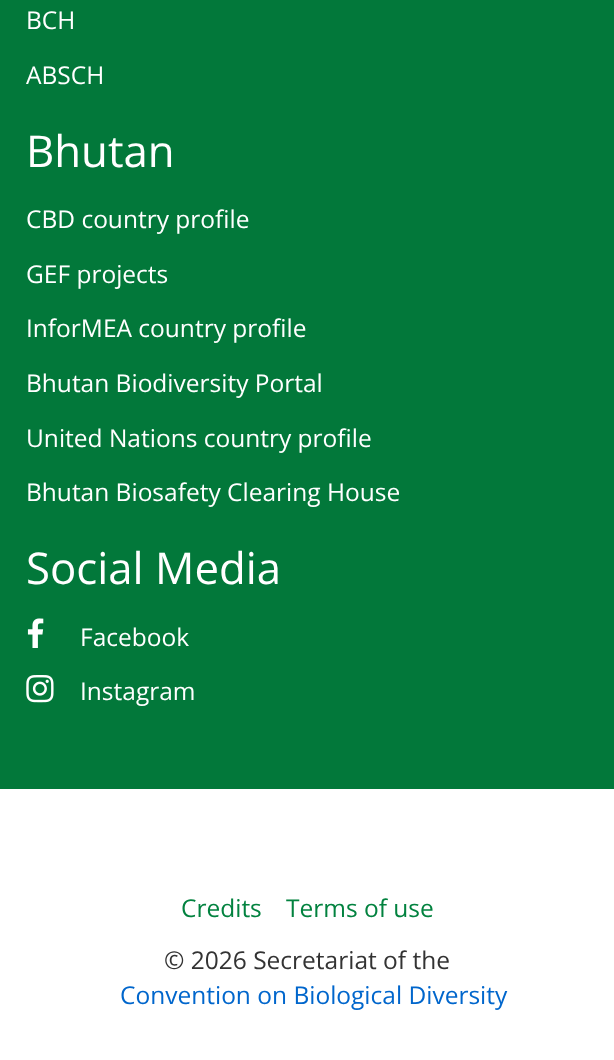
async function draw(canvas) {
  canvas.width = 614
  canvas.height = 1060
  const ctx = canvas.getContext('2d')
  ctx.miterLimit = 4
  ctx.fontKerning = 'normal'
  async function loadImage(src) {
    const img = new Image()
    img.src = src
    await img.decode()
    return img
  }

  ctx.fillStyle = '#fff'
  ctx.fillRect(0, 0, 614, 1060)
  ctx.fillStyle = '#02783a'
  ctx.fillRect(0, 0, 614, 789)
  ctx.font = '24.5px Open Sans'
  ctx.fillStyle = '#fff'
  ctx.fillText('BCH', 26, 29)
  ctx.fillText('ABSCH', 26, 84)
  ctx.font = '43.75px Open Sans'
  ctx.fillText('Bhutan', 26, 167)
  ctx.font = '24.5px Open Sans'
  ctx.fillText('CBD country profile', 26, 228)
  ctx.fillText('GEF projects', 26, 283)
  ctx.fillText('InforMEA country profile', 26, 337)
  ctx.fillText('Bhutan Biodiversity Portal', 26, 392)
  ctx.fillText('United Nations country profile', 26, 447)
  ctx.fillText('Bhutan Biosafety Clearing House', 26, 501)
  ctx.font = '43.75px Open Sans'
  ctx.fillText('Social Media', 26, 584)
  ctx.drawImage(await loadImage('image0.png'), 27, 618, 17, 30)
  ctx.font = '24.5px Open Sans'
  ctx.fillText('Facebook', 80, 646)
  ctx.drawImage(await loadImage('image1.png'), 26, 675, 28, 28)
  ctx.fillText('Instagram', 80, 700)
  ctx.fillStyle = '#02823f'
  ctx.fillText('Credits', 181, 917)
  ctx.fillText('Terms of use', 286, 917)
  ctx.fillStyle = '#333'
  ctx.fillText('© 2026 Secretariat of the', 164, 969)
  ctx.fillStyle = '#06c'
  ctx.fillText('Convention on Biological Diversity', 120, 1004)
}

draw(document.querySelector('canvas'))
